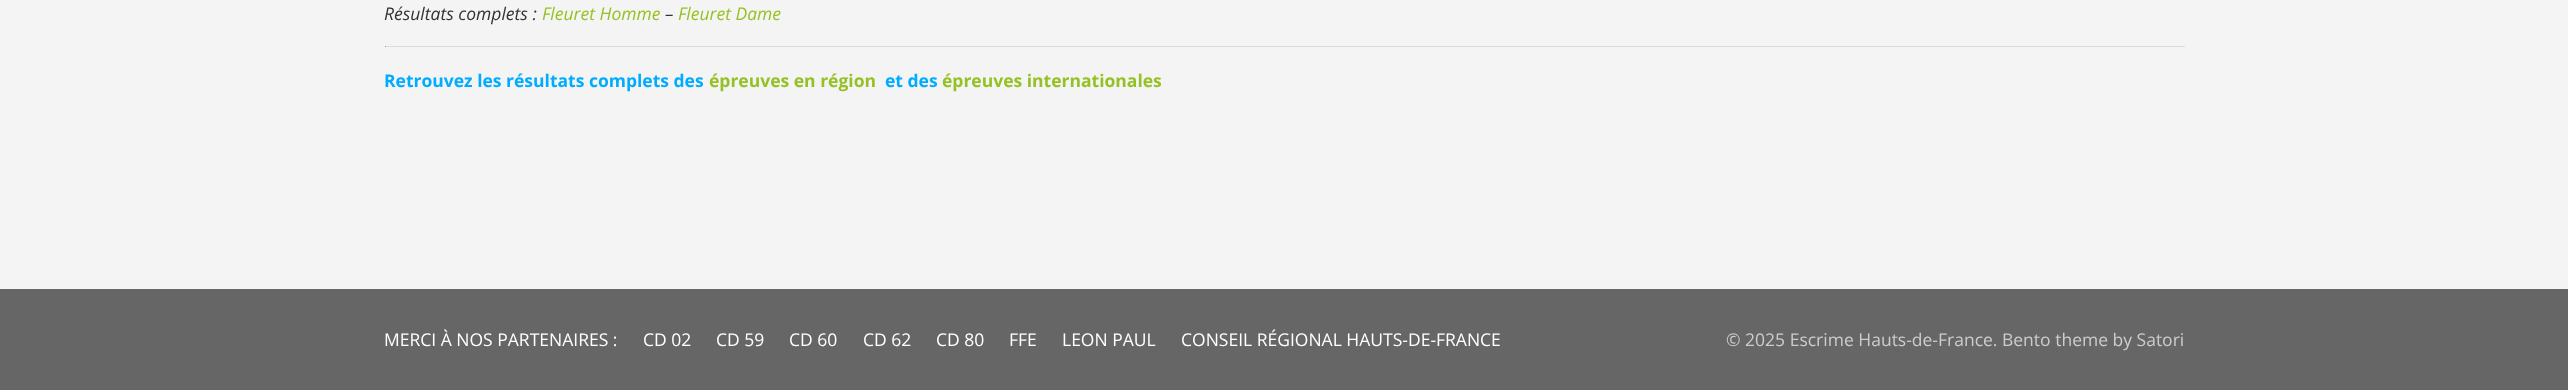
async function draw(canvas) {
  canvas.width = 2568
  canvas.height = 390
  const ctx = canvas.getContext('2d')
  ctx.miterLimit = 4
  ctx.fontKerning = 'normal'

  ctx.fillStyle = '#f4f4f4'
  ctx.fillRect(0, 0, 2568, 390)
  ctx.font = 'italic 17.5px Open Sans'
  ctx.fillStyle = '#333'
  ctx.fillText('Résultats complets :', 384, 20)
  ctx.fillStyle = '#96c125'
  ctx.fillText('Fleuret Homme', 542, 20)
  ctx.fillStyle = '#333'
  ctx.fillText('–', 665, 20)
  ctx.fillStyle = '#96c125'
  ctx.fillText('Fleuret Dame', 678, 20)
  ctx.fillStyle = '#ddd'
  ctx.fillRect(385, 46, 1800, 1)
  ctx.fillStyle = '#939393'
  ctx.fillRect(385, 46, 1, 1)
  ctx.font = 'bold 17.5px Open Sans'
  ctx.fillStyle = '#00acff'
  ctx.fillText('Retrouvez les résultats complets des', 384, 87)
  ctx.fillStyle = '#96c125'
  ctx.fillText('épreuves en région', 709, 87)
  ctx.fillStyle = '#00acff'
  ctx.fillText('et des', 885, 87)
  ctx.fillStyle = '#96c125'
  ctx.fillText('épreuves internationales', 942, 87)
  ctx.fillStyle = '#666'
  ctx.fillRect(0, 289, 2568, 101)
  ctx.font = '17.5px Open Sans'
  ctx.fillStyle = '#fff'
  ctx.fillText('MERCI À NOS PARTENAIRES :', 384, 346)
  ctx.fillText('CD 02', 643, 346)
  ctx.fillText('CD 59', 716, 346)
  ctx.fillText('CD 60', 789, 346)
  ctx.fillText('CD 62', 863, 346)
  ctx.fillText('CD 80', 936, 346)
  ctx.fillText('FFE', 1009, 346)
  ctx.fillText('LEON PAUL', 1062, 346)
  ctx.fillText('CONSEIL RÉGIONAL HAUTS-DE-FRANCE', 1181, 346)
  ctx.fillStyle = '#ccc'
  ctx.fillText('© 2025 Escrime Hauts-de-France. Bento theme by Satori', 1726, 346)
}

draw(document.querySelector('canvas'))
